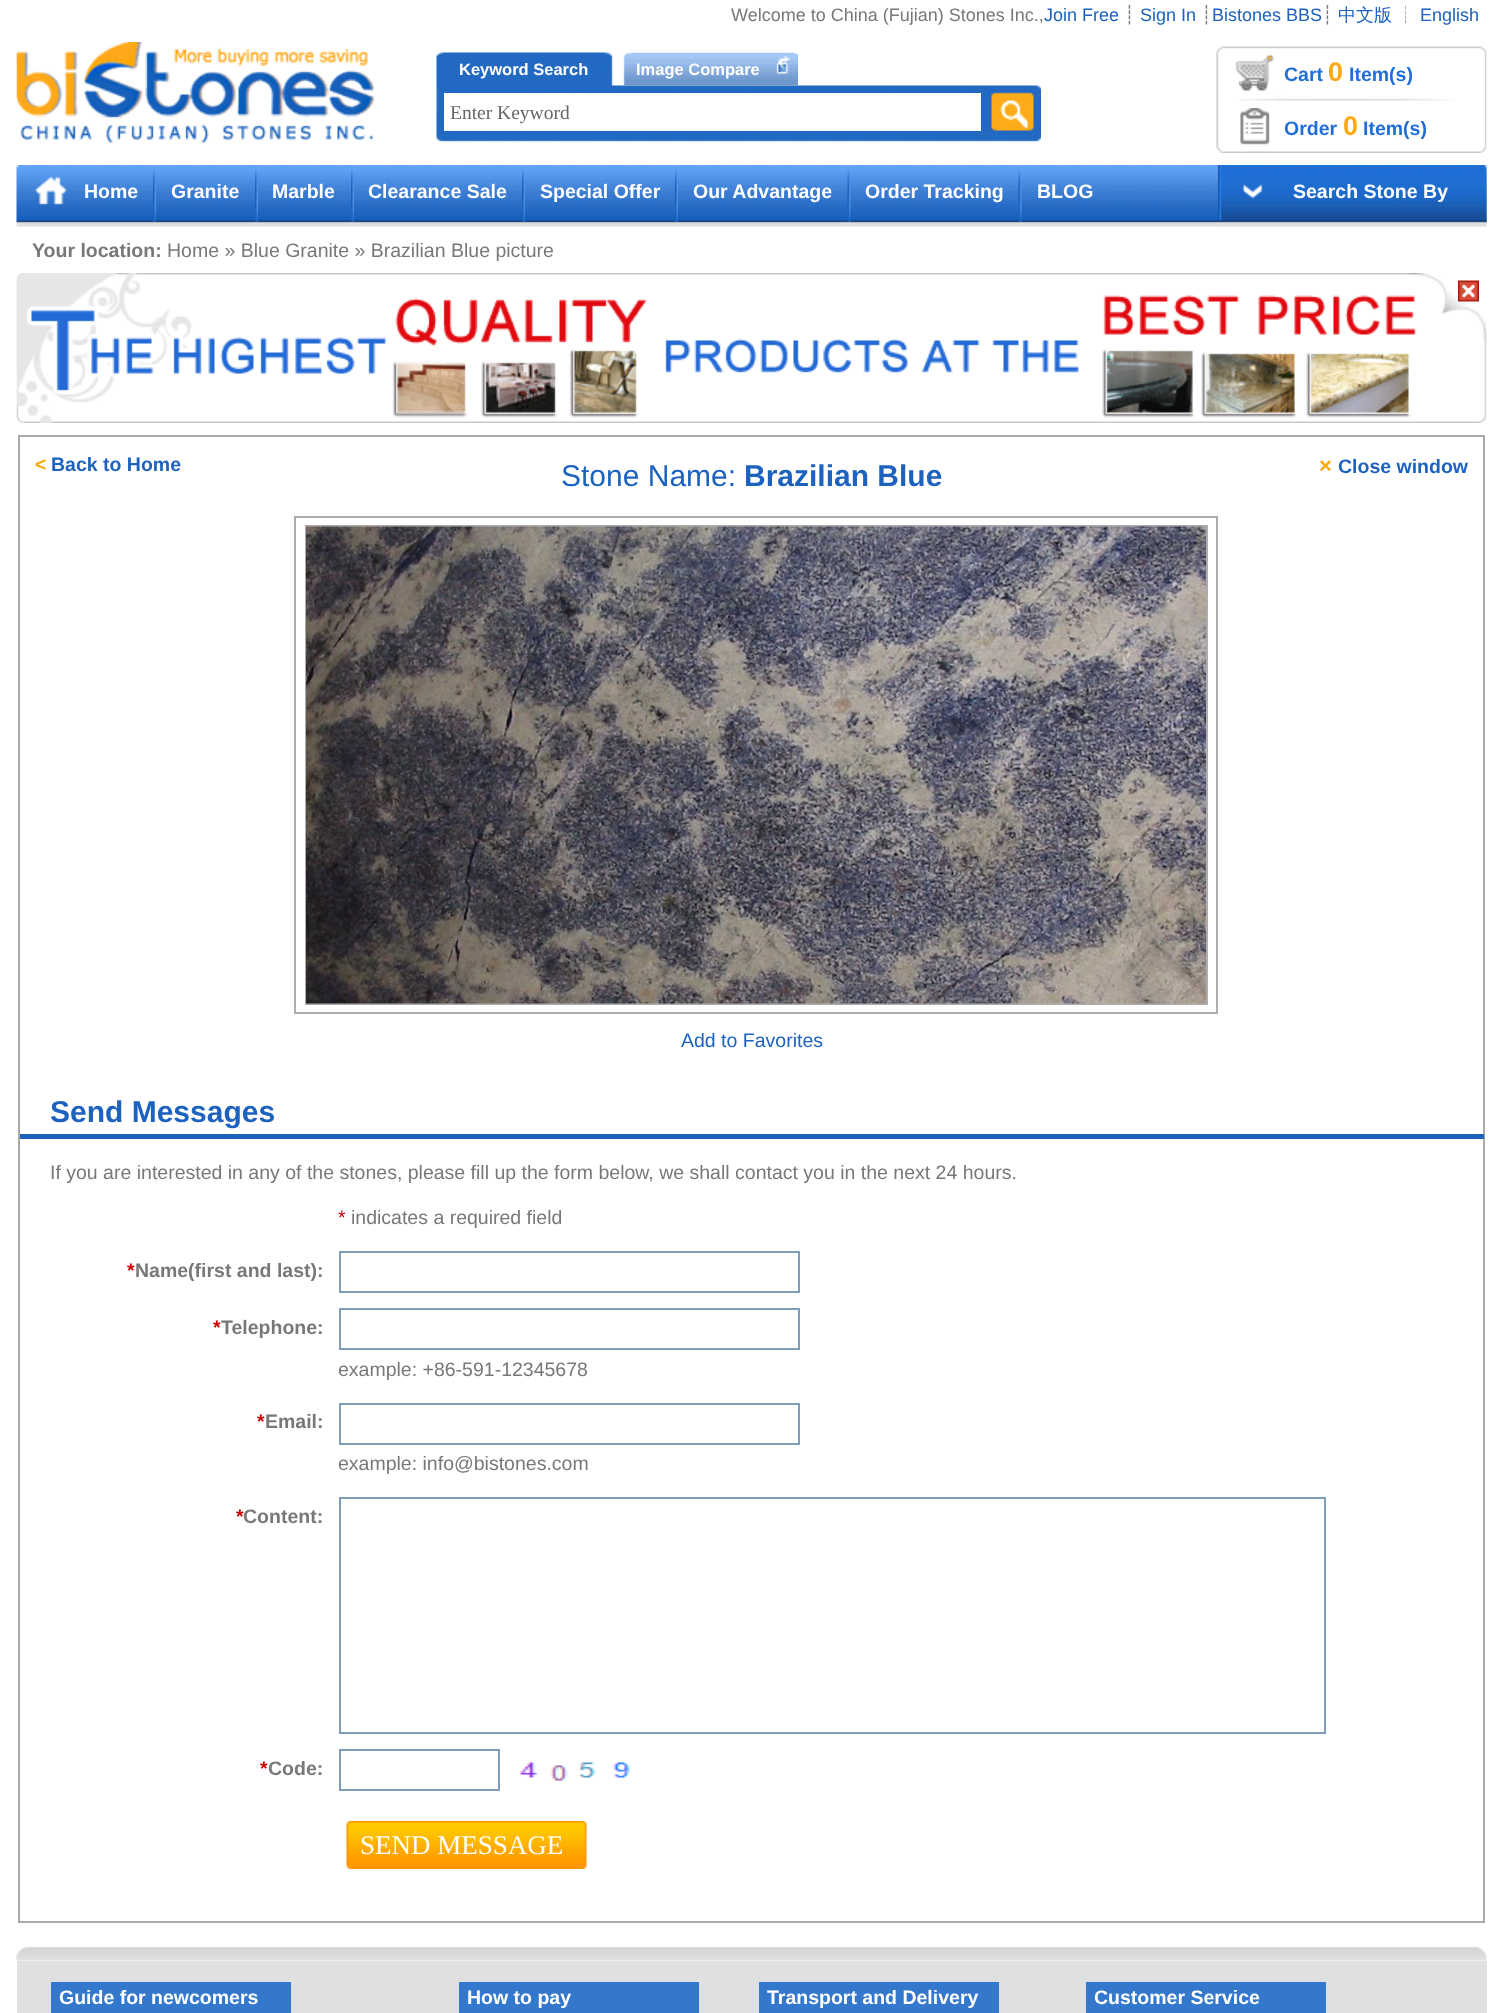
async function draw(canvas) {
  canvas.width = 1503
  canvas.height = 2013
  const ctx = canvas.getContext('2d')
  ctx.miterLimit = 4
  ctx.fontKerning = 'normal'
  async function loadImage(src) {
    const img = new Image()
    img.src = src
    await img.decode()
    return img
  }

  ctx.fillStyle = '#fff'
  ctx.fillRect(0, 0, 1503, 2013)
  ctx.font = '18px Liberation Sans'
  ctx.fillStyle = '#787878'
  ctx.fillText('Welcome to China (Fujian) Stones Inc.,', 731, 21)
  ctx.fillStyle = '#1c62be'
  ctx.fillText('Join Free', 1044, 21)
  ctx.font = '18px DejaVu Sans'
  ctx.fillStyle = '#787878'
  ctx.fillText('┊', 1124, 21)
  ctx.font = '18px Liberation Sans'
  ctx.fillStyle = '#1c62be'
  ctx.fillText('Sign In', 1140, 21)
  ctx.font = '18px DejaVu Sans'
  ctx.fillStyle = '#787878'
  ctx.fillText('┊', 1201, 21)
  ctx.font = '18px Liberation Sans'
  ctx.fillStyle = '#1c62be'
  ctx.fillText('Bistones BBS', 1212, 21)
  ctx.font = '18px DejaVu Sans'
  ctx.fillStyle = '#787878'
  ctx.fillText('┊', 1322, 21)
  ctx.font = '500 18px WenQuanYi Zen Hei'
  ctx.fillStyle = '#1c62be'
  ctx.fillText('中文版', 1338, 21)
  ctx.fillStyle = '#787878'
  ctx.fillText('┊', 1397, 21)
  ctx.font = '18px Liberation Sans'
  ctx.fillStyle = '#1c62be'
  ctx.fillText('English', 1420, 21)
  ctx.drawImage(await loadImage('image0.png'), 16, 42, 358, 101)
  ctx.drawImage(await loadImage('image1.png'), 436, 52, 605, 90)
  ctx.font = 'bold 16.5px Liberation Sans'
  ctx.fillStyle = '#fff'
  ctx.fillText('Keyword Search', 459, 75)
  ctx.drawImage(await loadImage('image2.png'), 623, 52, 175, 34)
  ctx.fillText('Image Compare', 636, 75)
  ctx.fillRect(444, 93, 537, 38)
  ctx.font = '19.5px Liberation Serif'
  ctx.fillStyle = '#666'
  ctx.fillText('Enter Keyword', 450, 119)
  ctx.drawImage(await loadImage('image3.png'), 991, 92, 43, 39)
  ctx.drawImage(await loadImage('image4.png'), 1216, 46, 271, 107)
  ctx.drawImage(await loadImage('image5.png'), 1235, 55, 39, 37)
  ctx.font = 'bold 19.5px Liberation Sans'
  ctx.fillStyle = '#216fd6'
  ctx.fillText('Cart', 1284, 81)
  ctx.font = 'bold 27px Liberation Sans'
  ctx.fillStyle = '#fba90d'
  ctx.fillText('0', 1328, 81)
  ctx.font = 'bold 19.5px Liberation Sans'
  ctx.fillStyle = '#216fd6'
  ctx.fillText('Item(s)', 1349, 81)
  ctx.drawImage(await loadImage('image6.png'), 1240, 108, 30, 37)
  ctx.fillText('Order', 1284, 135)
  ctx.font = 'bold 27px Liberation Sans'
  ctx.fillStyle = '#fba90d'
  ctx.fillText('0', 1343, 135)
  ctx.font = 'bold 19.5px Liberation Sans'
  ctx.fillStyle = '#216fd6'
  ctx.fillText('Item(s)', 1363, 135)
  ctx.drawImage(await loadImage('image7.png'), 16, 165, 1471, 62)
  ctx.fillStyle = '#fff'
  ctx.fillText('Home', 84, 198)
  ctx.drawImage(await loadImage('image8.png'), 153, 165, 3, 57)
  ctx.fillText('Granite', 171, 198)
  ctx.drawImage(await loadImage('image9.png'), 255, 167, 3, 55)
  ctx.fillText('Marble', 272, 198)
  ctx.drawImage(await loadImage('image10.png'), 351, 165, 3, 57)
  ctx.fillText('Clearance Sale', 368, 198)
  ctx.drawImage(await loadImage('image10.png'), 522, 165, 3, 57)
  ctx.fillText('Special Offer', 540, 198)
  ctx.drawImage(await loadImage('image8.png'), 675, 165, 3, 57)
  ctx.fillText('Our Advantage', 693, 198)
  ctx.drawImage(await loadImage('image11.png'), 847, 165, 4, 57)
  ctx.fillText('Order Tracking', 865, 198)
  ctx.drawImage(await loadImage('image12.png'), 1018, 165, 4, 57)
  ctx.fillText('BLOG', 1037, 198)
  ctx.drawImage(await loadImage('image13.png'), 1218, 165, 269, 62)
  ctx.fillText('Search Stone By', 1293, 198)
  ctx.fillStyle = '#787878'
  ctx.fillText('Your location:', 32, 257)
  ctx.font = '19.5px Liberation Sans'
  ctx.fillText('Home » Blue Granite » Brazilian Blue picture', 167, 257)
  ctx.drawImage(await loadImage('image14.png'), 16, 273, 1471, 150)
  ctx.drawImage(await loadImage('image15.png'), 1458, 280, 21, 22)
  ctx.strokeStyle = '#aaa'
  ctx.lineWidth = 2
  ctx.strokeRect(19, 436, 1465, 1486)
  ctx.font = 'bold 19.5px Liberation Sans'
  ctx.fillStyle = '#fba90d'
  ctx.fillText('<', 35, 471)
  ctx.fillStyle = '#1c62be'
  ctx.fillText('Back to Home', 51, 471)
  ctx.font = '30px Liberation Sans'
  ctx.fillText('Stone Name:', 561, 486)
  ctx.font = 'bold 30px Liberation Sans'
  ctx.fillText('Brazilian Blue', 744, 486)
  ctx.font = 'bold 22px Liberation Sans'
  ctx.fillStyle = '#fba90d'
  ctx.fillText('×', 1319, 473)
  ctx.font = 'bold 19.5px Liberation Sans'
  ctx.fillStyle = '#1c62be'
  ctx.fillText('Close window', 1338, 473)
  ctx.strokeStyle = '#adadad'
  ctx.strokeRect(295, 517, 922, 496)
  ctx.strokeRect(306, 526, 901, 478)
  ctx.drawImage(await loadImage('image16.png'), 306, 526, 900, 478)
  ctx.font = '19.5px Liberation Sans'
  ctx.fillText('Add to Favorites', 681, 1047)
  ctx.fillRect(20, 1134, 1464, 5)
  ctx.font = 'bold 30px Liberation Sans'
  ctx.fillText('Send Messages', 50, 1122)
  ctx.font = '19.5px Liberation Sans'
  ctx.fillStyle = '#787878'
  ctx.fillText('If you are interested in any of the stones, please fill up the form below, we shall contact you in the next 24 hours.', 50, 1179)
  ctx.fillStyle = '#c00'
  ctx.fillText('*', 338, 1224)
  ctx.fillStyle = '#787878'
  ctx.fillText('indicates a required field', 351, 1224)
  ctx.font = 'bold 19.5px Liberation Sans'
  ctx.fillStyle = '#c00'
  ctx.fillText('*', 127, 1277)
  ctx.fillStyle = '#787878'
  ctx.fillText('Name(first and last):', 135, 1277)
  ctx.strokeStyle = '#7f9db9'
  ctx.strokeRect(340, 1252, 459, 40)
  ctx.fillStyle = '#c00'
  ctx.fillText('*', 213, 1334)
  ctx.fillStyle = '#787878'
  ctx.fillText('Telephone:', 221, 1334)
  ctx.strokeRect(340, 1309, 459, 40)
  ctx.font = '19.5px Liberation Sans'
  ctx.fillText('example: +86-591-12345678', 338, 1376)
  ctx.font = 'bold 19.5px Liberation Sans'
  ctx.fillStyle = '#c00'
  ctx.fillText('*', 257, 1428)
  ctx.fillStyle = '#787878'
  ctx.fillText('Email:', 265, 1428)
  ctx.strokeRect(340, 1404, 459, 40)
  ctx.font = '19.5px Liberation Sans'
  ctx.fillText('example: info@bistones.com', 338, 1470)
  ctx.font = 'bold 19.5px Liberation Sans'
  ctx.fillStyle = '#c00'
  ctx.fillText('*', 236, 1523)
  ctx.fillStyle = '#787878'
  ctx.fillText('Content:', 243, 1523)
  ctx.strokeRect(340, 1498, 985, 235)
  ctx.fillStyle = '#c00'
  ctx.fillText('*', 260, 1775)
  ctx.fillStyle = '#787878'
  ctx.fillText('Code:', 268, 1775)
  ctx.strokeRect(340, 1750, 159, 40)
  ctx.drawImage(await loadImage('image17.png'), 519, 1762, 111, 19)
  ctx.drawImage(await loadImage('image18.png'), 346, 1821, 241, 48)
  ctx.font = '27px Liberation Serif'
  ctx.fillStyle = '#fff'
  ctx.fillText('SEND MESSAGE', 360, 1854)
  ctx.drawImage(await loadImage('image19.png'), 16, 1946, 1471, 15)
  ctx.fillStyle = '#dfe0e1'
  ctx.fillRect(17, 1961, 1470, 52)
  ctx.fillStyle = '#3478cd'
  ctx.fillRect(51, 1982, 240, 31)
  ctx.font = 'bold 19.5px Liberation Sans'
  ctx.fillStyle = '#fff'
  ctx.fillText('Guide for newcomers', 59, 2004)
  ctx.fillStyle = '#3478cd'
  ctx.fillRect(459, 1982, 240, 31)
  ctx.fillStyle = '#fff'
  ctx.fillText('How to pay', 467, 2004)
  ctx.fillStyle = '#3478cd'
  ctx.fillRect(759, 1982, 240, 31)
  ctx.fillStyle = '#fff'
  ctx.fillText('Transport and Delivery', 767, 2004)
  ctx.fillStyle = '#3478cd'
  ctx.fillRect(1086, 1982, 240, 31)
  ctx.fillStyle = '#fff'
  ctx.fillText('Customer Service', 1094, 2004)
}

draw(document.querySelector('canvas'))
